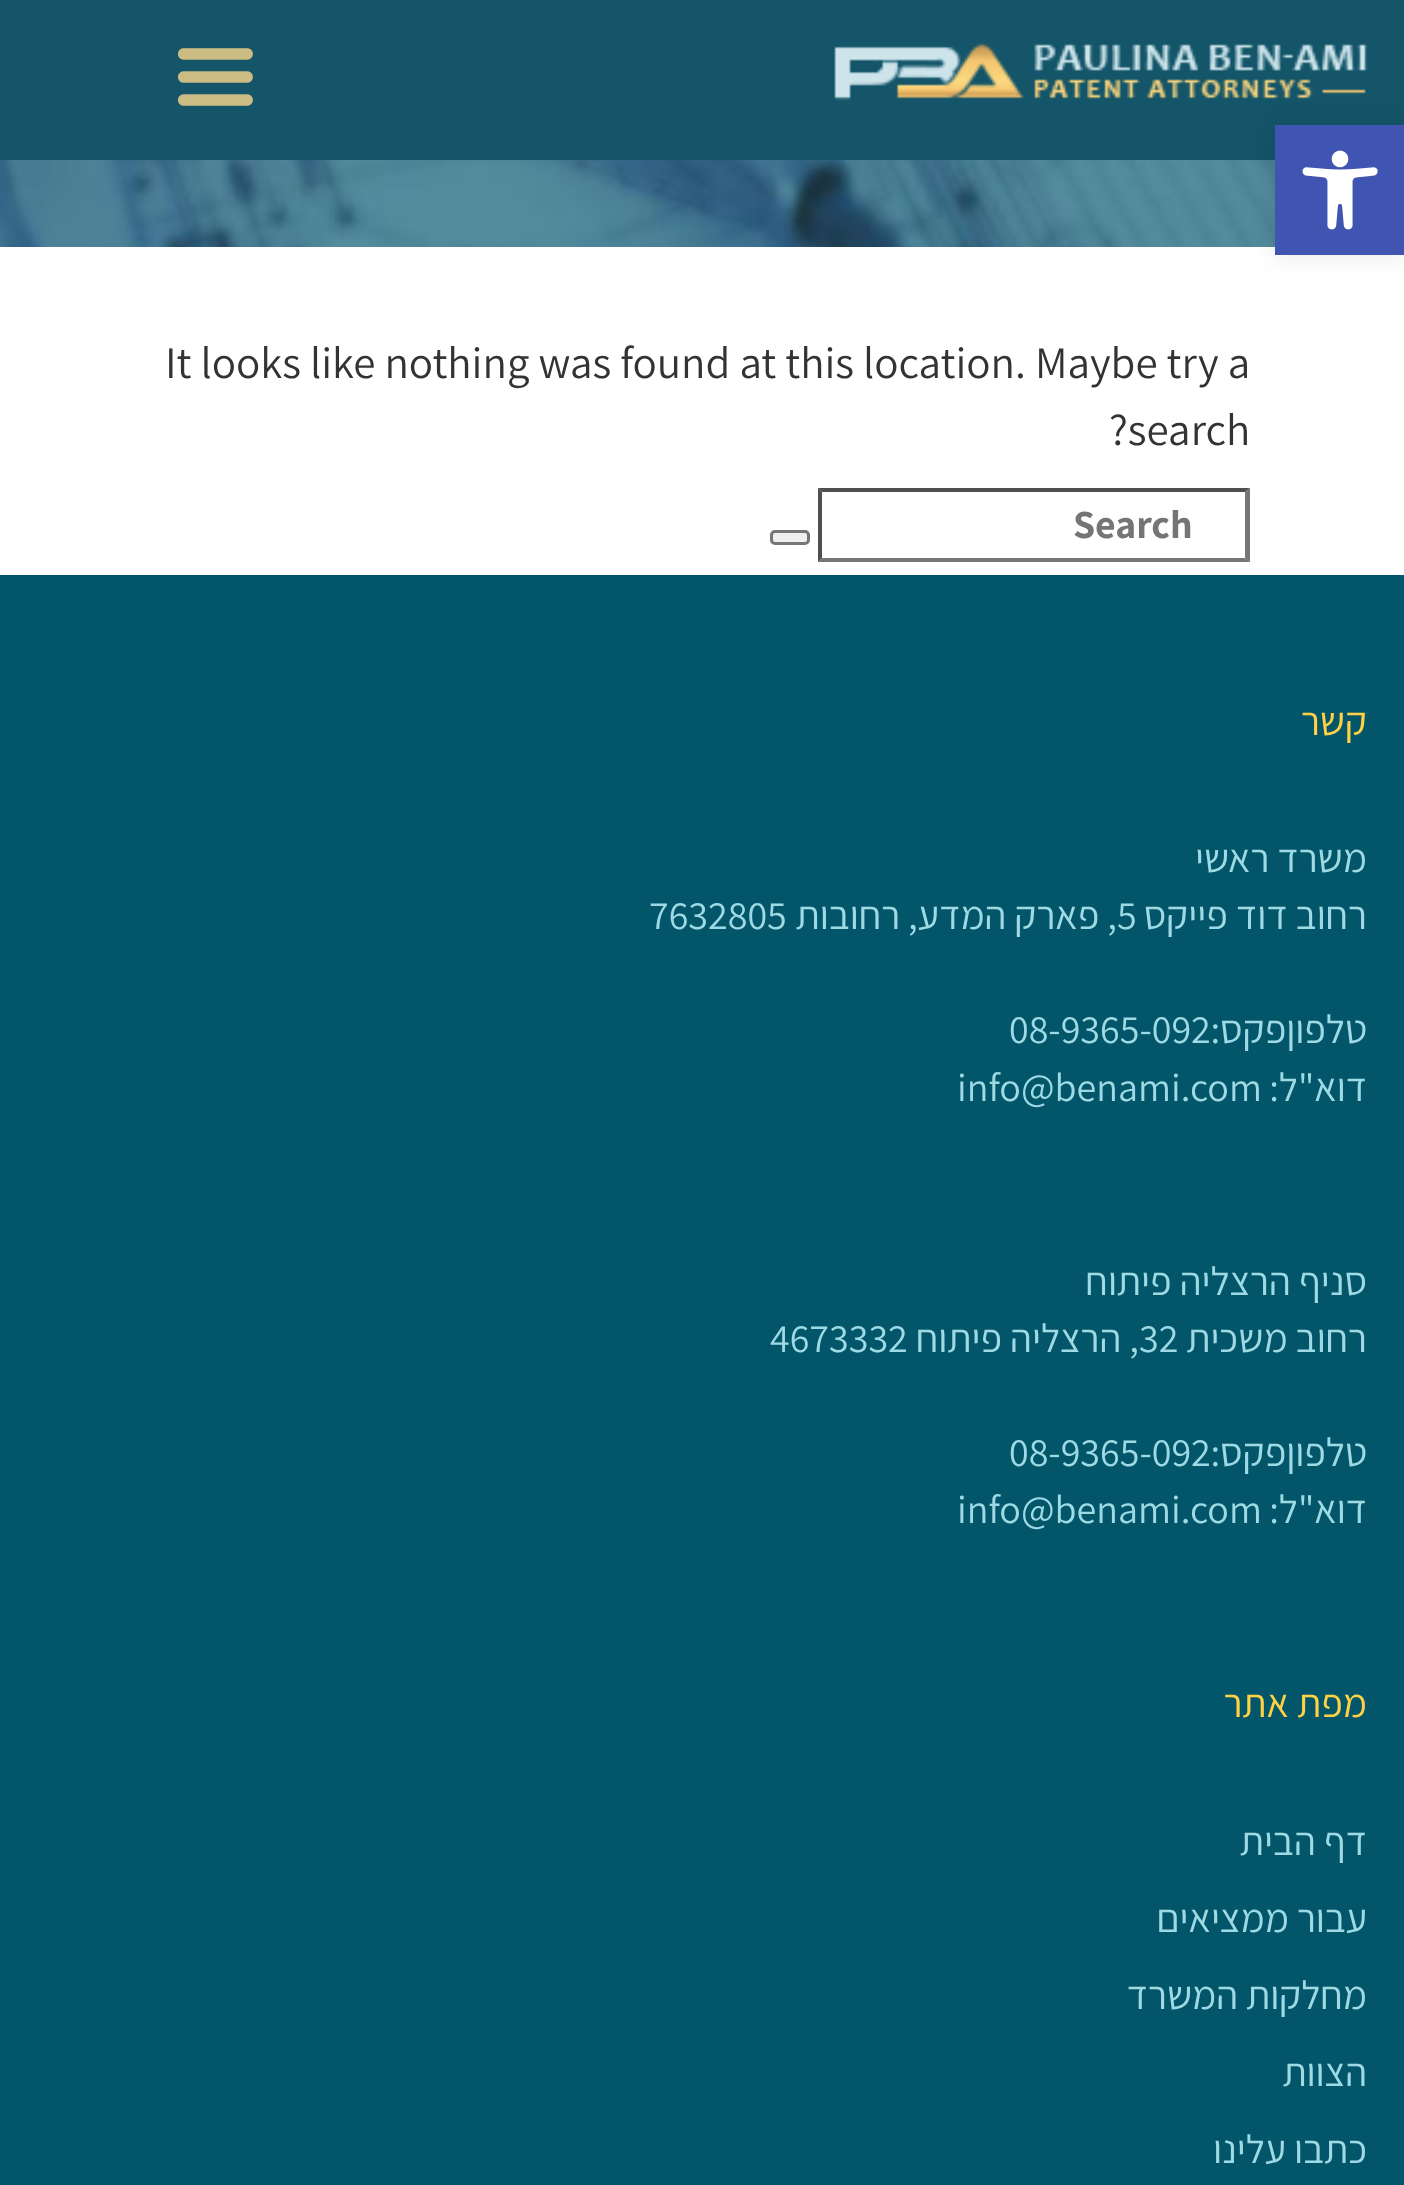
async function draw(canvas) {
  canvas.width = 1404
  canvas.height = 2185
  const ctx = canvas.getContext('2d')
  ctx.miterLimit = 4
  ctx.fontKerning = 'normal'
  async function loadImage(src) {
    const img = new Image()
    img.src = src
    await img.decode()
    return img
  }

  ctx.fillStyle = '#fff'
  ctx.fillRect(0, 0, 1404, 2185)
  ctx.fillStyle = '#145569'
  ctx.fillRect(0, 0, 1404, 160)
  ctx.drawImage(await loadImage('image0.png'), 834, 42, 534, 59)
  ctx.drawImage(await loadImage('image1.png'), 177, 48, 76, 58)
  ctx.drawImage(await loadImage('image3.png'), 0, 160, 1275, 87)
  ctx.fillStyle = '#0000001a'
  ctx.filter = 'blur(12.5px)'
  ctx.beginPath()
  ctx.rect(1275, 125, 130, 130)
  ctx.fill()
  ctx.filter = 'none'
  ctx.fillStyle = '#4054b2'
  ctx.fillRect(1275, 125, 129, 130)
  ctx.drawImage(await loadImage('image2.png'), 1302, 150, 76, 80)
  ctx.font = '45px Assistant'
  ctx.fillStyle = '#333'
  ctx.fillText('It looks like nothing was found at this location. Maybe try a', 165, 378)
  ctx.fillText('?search', 1109, 445)
  ctx.fillStyle = '#4f4f4f'
  ctx.beginPath()
  ctx.moveTo(818, 488)
  ctx.lineTo(1250, 488)
  ctx.lineTo(1245, 492)
  ctx.lineTo(822, 492)
  ctx.closePath()
  ctx.fill()
  ctx.fillStyle = '#767676'
  ctx.beginPath()
  ctx.moveTo(1250, 488)
  ctx.lineTo(1250, 562)
  ctx.lineTo(1245, 558)
  ctx.lineTo(1245, 492)
  ctx.closePath()
  ctx.fill()
  ctx.beginPath()
  ctx.moveTo(1250, 562)
  ctx.lineTo(818, 562)
  ctx.lineTo(822, 558)
  ctx.lineTo(1245, 558)
  ctx.closePath()
  ctx.fill()
  ctx.fillStyle = '#4f4f4f'
  ctx.beginPath()
  ctx.moveTo(818, 562)
  ctx.lineTo(818, 488)
  ctx.lineTo(822, 492)
  ctx.lineTo(822, 558)
  ctx.closePath()
  ctx.fill()
  ctx.font = 'bold 40px Assistant'
  ctx.fillStyle = '#757575'
  ctx.fillText('Search', 1073, 538)
  ctx.fillStyle = '#efefef'
  ctx.beginPath()
  ctx.roundRect(771.5, 531.5, 37, 12, 3.5)
  ctx.fill()
  ctx.strokeStyle = '#767676'
  ctx.lineWidth = 3
  ctx.stroke()
  ctx.fillStyle = '#03556a'
  ctx.fillRect(0, 575, 1404, 1610)
  ctx.direction = 'rtl'
  ctx.font = '40px Assistant'
  ctx.fillStyle = '#ffd143'
  ctx.fillText('קשר', 1367, 735)
  ctx.fillStyle = '#9edae4'
  ctx.fillText('משרד ראשי', 1367, 872)
  ctx.fillText('רחוב דוד פייקס', 1367, 929)
  ctx.direction = 'ltr'
  ctx.fillText('5', 1117, 929)
  ctx.direction = 'rtl'
  ctx.fillText(', פארק המדע, רחובות', 1117, 929)
  ctx.direction = 'ltr'
  ctx.fillText('7632805', 649, 929)
  ctx.direction = 'rtl'
  ctx.fillText('טלפוןפקס:', 1367, 1043)
  ctx.direction = 'ltr'
  ctx.fillText('08-9365-092', 1009, 1043)
  ctx.direction = 'rtl'
  ctx.fillText('דוא"ל:', 1367, 1101)
  ctx.direction = 'ltr'
  ctx.fillText('info@benami.com', 957, 1101)
  ctx.direction = 'rtl'
  ctx.fillText('סניף הרצליה פיתוח', 1367, 1295)
  ctx.fillText('רחוב משכית', 1367, 1352)
  ctx.direction = 'ltr'
  ctx.fillText('32', 1139, 1352)
  ctx.direction = 'rtl'
  ctx.fillText(', הרצליה פיתוח', 1139, 1352)
  ctx.direction = 'ltr'
  ctx.fillText('4673332', 770, 1352)
  ctx.direction = 'rtl'
  ctx.fillText('טלפוןפקס:', 1367, 1466)
  ctx.direction = 'ltr'
  ctx.fillText('08-9365-092', 1009, 1466)
  ctx.direction = 'rtl'
  ctx.fillText('דוא"ל:', 1367, 1523)
  ctx.direction = 'ltr'
  ctx.fillText('info@benami.com', 957, 1523)
  ctx.direction = 'rtl'
  ctx.fillStyle = '#ffd143'
  ctx.fillText('מפת אתר', 1367, 1717)
  ctx.fillStyle = '#9edae4'
  ctx.fillText('דף הבית', 1367, 1855)
  ctx.fillText('עבור ממציאים', 1367, 1932)
  ctx.fillText('מחלקות המשרד', 1367, 2009)
  ctx.fillText('הצוות', 1367, 2086)
  ctx.fillText('כתבו עלינו', 1367, 2163)
}

draw(document.querySelector('canvas'))
